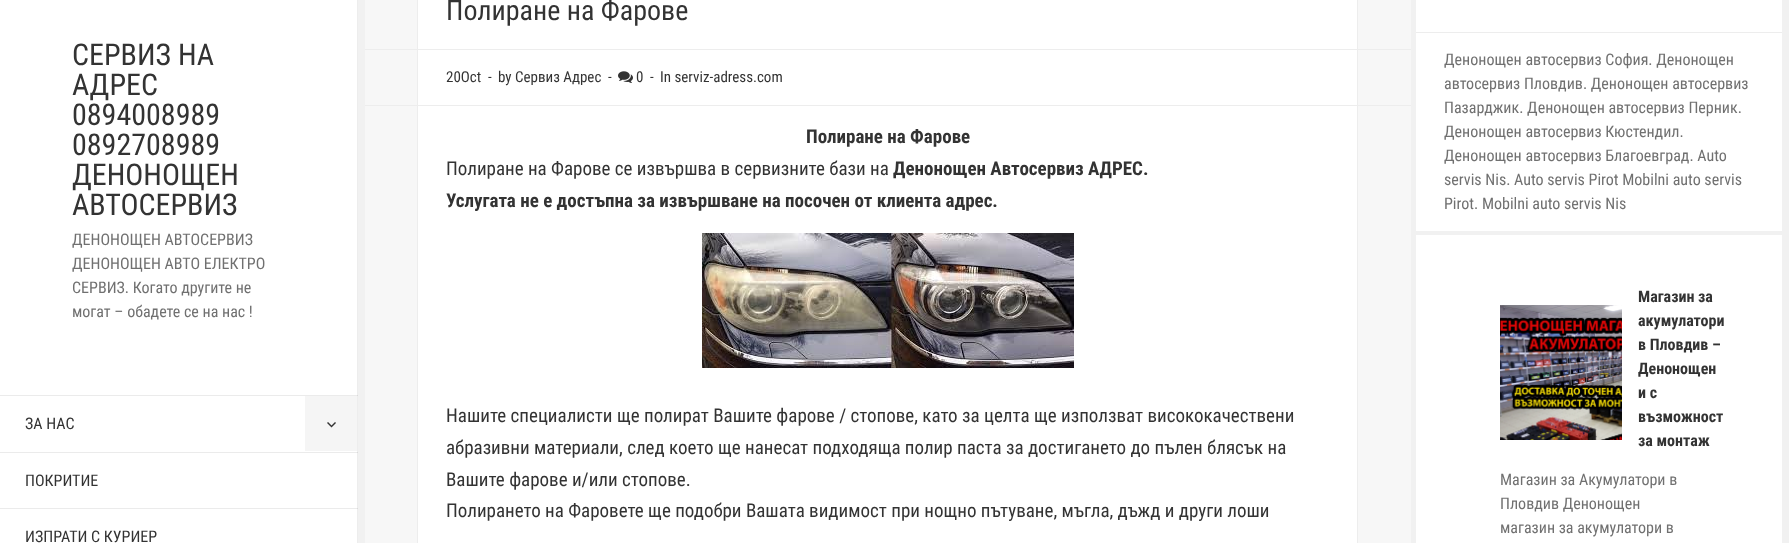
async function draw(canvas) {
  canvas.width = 1789
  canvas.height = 543
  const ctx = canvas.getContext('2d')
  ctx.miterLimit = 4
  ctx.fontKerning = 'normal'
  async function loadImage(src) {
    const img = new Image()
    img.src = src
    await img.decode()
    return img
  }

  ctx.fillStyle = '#f1f1f1'
  ctx.fillRect(0, 0, 1789, 543)
  ctx.fillStyle = '#fff'
  ctx.fillRect(0, 0, 357, 543)
  ctx.fillStyle = '#ebebeb'
  ctx.fillRect(0, 508, 358, 1)
  ctx.fillRect(0, 452, 358, 1)
  ctx.fillRect(0, 395, 358, 1)
  ctx.fillStyle = '#ededed'
  ctx.fillRect(357, 0, 1, 543)
  ctx.fillStyle = '#dadada'
  ctx.fillRect(357, 508, 1, 1)
  ctx.fillRect(357, 452, 1, 1)
  ctx.fillRect(357, 395, 1, 1)
  ctx.font = '30px Roboto Condensed'
  ctx.fillStyle = '#333'
  ctx.fillText('СЕРВИЗ НА', 72, 65)
  ctx.fillText('АДРЕС', 72, 95)
  ctx.fillText('0894008989', 72, 125)
  ctx.fillText('0892708989', 72, 155)
  ctx.fillText('ДЕНОНОЩЕН', 72, 185)
  ctx.fillText('АВТОСЕРВИЗ', 72, 215)
  ctx.font = '16px Roboto Condensed'
  ctx.fillStyle = '#707070'
  ctx.fillText('ДЕНОНОЩЕН АВТОСЕРВИЗ', 72, 245)
  ctx.fillText('ДЕНОНОЩЕН АВТО ЕЛЕКТРО', 72, 269)
  ctx.fillText('СЕРВИЗ. Когато другите не', 72, 293)
  ctx.fillText('могат – обадете се на нас !', 72, 317)
  ctx.fillStyle = '#333'
  ctx.fillText('ЗА НАС', 25, 429)
  ctx.fillStyle = '#f5f5f5'
  ctx.fillRect(305, 396, 52, 55)
  ctx.drawImage(await loadImage('image0.png'), 327, 422, 9, 6)
  ctx.fillStyle = '#333'
  ctx.fillText('ПОКРИТИЕ', 25, 486)
  ctx.fillText('ИЗПРАТИ С КУРИЕР', 25, 542)
  ctx.fillStyle = '#f7f7f7'
  ctx.fillRect(365, 0, 1046, 543)
  ctx.fillStyle = '#ededed'
  ctx.fillRect(365, 49, 1046, 1)
  ctx.fillStyle = '#fff'
  ctx.fillRect(418, 0, 939, 49)
  ctx.fillStyle = '#ededed'
  ctx.fillRect(1357, 0, 1, 49)
  ctx.fillRect(417, 0, 1, 49)
  ctx.font = '28px Roboto Condensed'
  ctx.fillStyle = '#333'
  ctx.fillText('Полиране на Фарове', 446, 20)
  ctx.fillStyle = '#ededed'
  ctx.fillRect(365, 105, 1046, 1)
  ctx.fillStyle = '#fff'
  ctx.fillRect(418, 50, 939, 55)
  ctx.fillStyle = '#ededed'
  ctx.fillRect(1357, 50, 1, 55)
  ctx.fillRect(417, 50, 1, 55)
  ctx.font = '15px Roboto Condensed'
  ctx.fillStyle = '#333'
  ctx.fillText('20Oct', 446, 82)
  ctx.fillText('-', 488, 82)
  ctx.fillText('by Сервиз Адрес', 498, 82)
  ctx.fillText('-', 608, 82)
  ctx.drawImage(await loadImage('image1.png'), 618, 71, 15, 12)
  ctx.fillText('0', 636, 82)
  ctx.fillText('-', 650, 82)
  ctx.fillText('In serviz-adress.com', 660, 82)
  ctx.fillStyle = '#fff'
  ctx.fillRect(418, 106, 939, 437)
  ctx.fillStyle = '#ededed'
  ctx.fillRect(1357, 106, 1, 437)
  ctx.fillRect(417, 106, 1, 437)
  ctx.font = 'bold 19px Roboto Condensed'
  ctx.fillStyle = '#333'
  ctx.fillText('Полиране на Фарове', 806, 143)
  ctx.font = '19px Roboto Condensed'
  ctx.fillText('Полиране на Фарове се извършва в сервизните бази на', 446, 175)
  ctx.font = 'bold 19px Roboto Condensed'
  ctx.fillText('Денонощен Автосервиз АДРЕС.', 893, 175)
  ctx.fillText('Услугата не е достъпна за извършване на посочен от клиента адрес.', 446, 207)
  ctx.drawImage(await loadImage('image2.png'), 702, 233, 372, 135)
  ctx.font = '19px Roboto Condensed'
  ctx.fillText('Нашите специалисти ще полират Вашите фарове / стопове, като за целта ще използват висококачествени', 446, 422)
  ctx.fillText('абразивни материали, след което ще нанесат подходяща полир паста за достигането до пълен блясък на', 446, 454)
  ctx.fillText('Вашите фарове и/или стопове.', 446, 486)
  ctx.fillText('Полирането на Фаровете ще подобри Вашата видимост при нощно пътуване, мъгла, дъжд и други лоши', 446, 517)
  ctx.fillStyle = '#fff'
  ctx.fillRect(1416, 0, 366, 231)
  ctx.fillStyle = '#ededed'
  ctx.fillRect(1416, 32, 366, 1)
  ctx.font = '16px Roboto Condensed'
  ctx.fillStyle = '#707070'
  ctx.fillText('Денонощен автосервиз София. Денонощен', 1444, 65)
  ctx.fillText('автосервиз Пловдив. Денонощен автосервиз', 1444, 89)
  ctx.fillText('Пазарджик. Денонощен автосервиз Перник.', 1444, 113)
  ctx.fillText('Денонощен автосервиз Кюстендил.', 1444, 137)
  ctx.fillText('Денонощен автосервиз Благоевград. Auto', 1444, 161)
  ctx.fillText('servis Nis. Auto servis Pirot Mobilni auto servis', 1444, 185)
  ctx.fillText('Pirot. Mobilni auto servis Nis', 1444, 209)
  ctx.fillStyle = '#fff'
  ctx.fillRect(1416, 235, 366, 308)
  ctx.font = 'bold 16px Roboto Condensed'
  ctx.fillStyle = '#333'
  ctx.fillText('Магазин за', 1638, 302)
  ctx.drawImage(await loadImage('image3.png'), 1500, 305, 122, 135)
  ctx.fillText('акумулатори', 1638, 326)
  ctx.fillText('в Пловдив –', 1638, 350)
  ctx.fillText('Денонощен', 1638, 374)
  ctx.fillText('и с', 1638, 398)
  ctx.fillText('възможност', 1638, 422)
  ctx.fillText('за монтаж', 1638, 446)
  ctx.font = '16px Roboto Condensed'
  ctx.fillStyle = '#707070'
  ctx.fillText('Магазин за Акумулатори в', 1500, 485)
  ctx.fillText('Пловдив Денонощен', 1500, 509)
  ctx.fillText('магазин за акумулатори в', 1500, 533)
}

draw(document.querySelector('canvas'))
